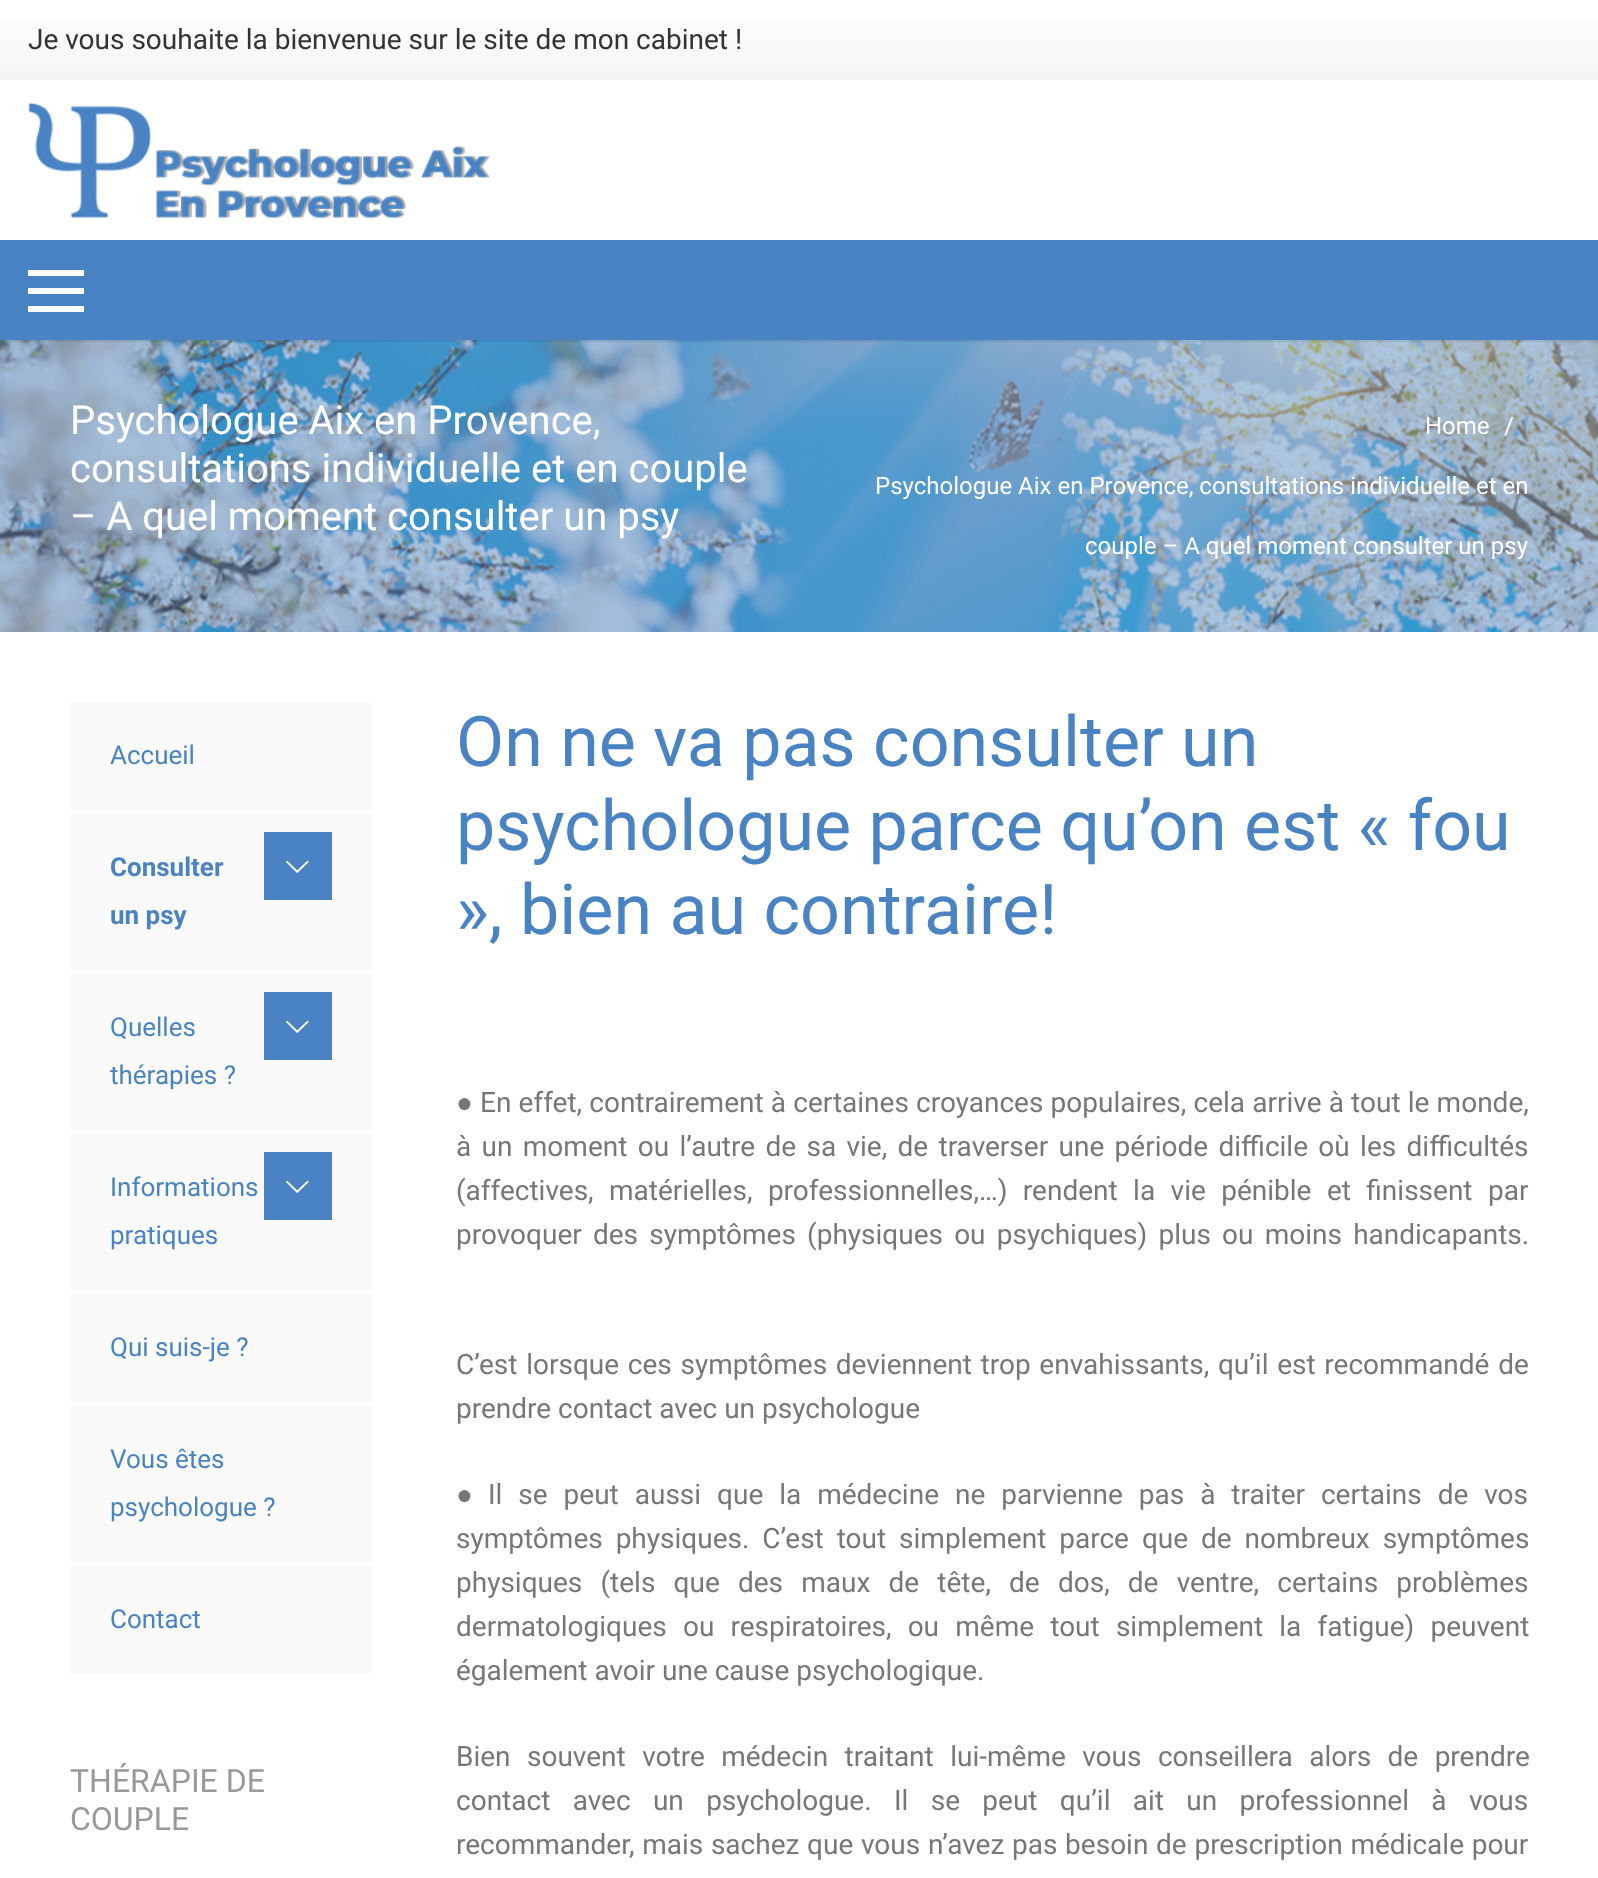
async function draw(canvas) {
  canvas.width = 1598
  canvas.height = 1878
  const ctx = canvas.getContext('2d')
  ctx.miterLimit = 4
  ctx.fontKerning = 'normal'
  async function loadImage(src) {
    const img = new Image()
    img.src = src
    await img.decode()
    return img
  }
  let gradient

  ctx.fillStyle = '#fff'
  ctx.fillRect(0, 0, 1598, 1878)
  gradient = ctx.createLinearGradient(799, 80, 799, 0)
  gradient.addColorStop(0, '#f5f5f5')
  gradient.addColorStop(1, '#fff')
  ctx.fillStyle = gradient
  ctx.fillRect(0, 20, 1598, 60)
  ctx.font = '28px Roboto'
  ctx.fillStyle = '#333'
  ctx.fillText('Je vous souhaite la bienvenue sur le site de mon cabinet !', 28, 49)
  ctx.drawImage(await loadImage('image0.png'), 28, 102, 462, 117)
  ctx.drawImage(await loadImage('image1.png'), 0, 340, 1598, 292)
  ctx.fillStyle = '#00000014'
  ctx.fillRect(0, 340, 1598, 2)
  ctx.fillStyle = '#4983c4'
  ctx.fillRect(0, 240, 1598, 100)
  ctx.fillStyle = '#fff'
  ctx.fillRect(28, 288, 56, 6)
  ctx.fillRect(28, 270, 56, 6)
  ctx.fillRect(28, 306, 56, 6)
  ctx.font = '40px Roboto'
  ctx.fillText('Psychologue Aix en Provence,', 70, 434)
  ctx.fillText('consultations individuelle et en couple', 70, 482)
  ctx.fillText('– A quel moment consulter un psy', 70, 530)
  ctx.font = '24px Roboto'
  ctx.fillText('Home', 1425, 434)
  ctx.fillText('/', 1504, 434)
  ctx.fillText('Psychologue Aix en Provence, consultations individuelle et en', 875, 494)
  ctx.fillText('couple – A quel moment consulter un psy', 1085, 554)
  ctx.fillStyle = '#fafafa'
  ctx.fillRect(70, 702, 302, 108)
  ctx.font = '26px Roboto'
  ctx.fillStyle = '#4983c4'
  ctx.fillText('Accueil', 110, 764)
  ctx.fillStyle = '#fafafa'
  ctx.fillRect(70, 814, 302, 156)
  ctx.font = 'bold 26px Roboto'
  ctx.fillStyle = '#4983c4'
  ctx.fillText('Consulter', 110, 876)
  ctx.fillText('un psy', 110, 924)
  ctx.fillRect(264, 832, 68, 68)
  ctx.drawImage(await loadImage('image2.png'), 286, 860, 23, 13)
  ctx.fillStyle = '#fafafa'
  ctx.fillRect(70, 974, 302, 156)
  ctx.font = '26px Roboto'
  ctx.fillStyle = '#4983c4'
  ctx.fillText('Quelles', 110, 1036)
  ctx.fillText('thérapies ?', 110, 1084)
  ctx.fillRect(264, 992, 68, 68)
  ctx.drawImage(await loadImage('image2.png'), 286, 1020, 23, 13)
  ctx.fillStyle = '#fafafa'
  ctx.fillRect(70, 1134, 302, 156)
  ctx.fillStyle = '#4983c4'
  ctx.fillText('Informations', 110, 1196)
  ctx.fillText('pratiques', 110, 1244)
  ctx.fillRect(264, 1152, 68, 68)
  ctx.drawImage(await loadImage('image2.png'), 286, 1180, 23, 13)
  ctx.fillStyle = '#fafafa'
  ctx.fillRect(70, 1294, 302, 108)
  ctx.fillStyle = '#4983c4'
  ctx.fillText('Qui suis-je ?', 110, 1356)
  ctx.fillStyle = '#fafafa'
  ctx.fillRect(70, 1406, 302, 156)
  ctx.fillStyle = '#4983c4'
  ctx.fillText('Vous êtes', 110, 1468)
  ctx.fillText('psychologue ?', 110, 1516)
  ctx.fillStyle = '#fafafa'
  ctx.fillRect(70, 1566, 302, 108)
  ctx.fillStyle = '#4983c4'
  ctx.fillText('Contact', 110, 1628)
  ctx.font = '32px Roboto'
  ctx.fillStyle = '#999'
  ctx.fillText('THÉRAPIE DE', 70, 1792)
  ctx.fillText('COUPLE', 70, 1830)
  ctx.font = '70px Roboto'
  ctx.fillStyle = '#4983c4'
  ctx.fillText('On ne va pas consulter un', 456, 766)
  ctx.fillText('psychologue parce qu’on est « fou', 456, 850)
  ctx.fillText('», bien au contraire!', 456, 934)
  ctx.font = '28px Liberation Sans'
  ctx.fillStyle = '#777'
  ctx.fillText('●', 456, 1112)
  ctx.wordSpacing = '0.25px'
  ctx.font = '28px Roboto'
  ctx.fillText('En effet, contrairement à certaines croyances populaires, cela arrive à tout le monde,', 480, 1112)
  ctx.wordSpacing = '3.4px'
  ctx.fillText('à un moment ou l’autre de sa vie, de traverser une période difficile où les difficultés', 456, 1156)
  ctx.wordSpacing = '8.5px'
  ctx.fillText('(affectives, matérielles, professionnelles,…) rendent la vie pénible et finissent par', 456, 1200)
  ctx.wordSpacing = '4.25px'
  ctx.fillText('provoquer des symptômes (physiques ou psychiques) plus ou moins handicapants.', 456, 1244)
  ctx.wordSpacing = '1.75px'
  ctx.fillText('C’est lorsque ces symptômes deviennent trop envahissants, qu’il est recommandé de', 456, 1374)
  ctx.wordSpacing = '0px'
  ctx.fillText('prendre contact avec un psychologue', 456, 1418)
  ctx.font = '28px Liberation Sans'
  ctx.fillText('●', 456, 1504)
  ctx.wordSpacing = '9px'
  ctx.font = '28px Roboto'
  ctx.fillText('Il se peut aussi que la médecine ne parvienne pas à traiter certains de vos', 488, 1504)
  ctx.wordSpacing = '6px'
  ctx.fillText('symptômes physiques. C’est tout simplement parce que de nombreux symptômes', 456, 1548)
  ctx.wordSpacing = '11.25px'
  ctx.fillText('physiques (tels que des maux de tête, de dos, de ventre, certains problèmes', 456, 1592)
  ctx.wordSpacing = '9.25px'
  ctx.fillText('dermatologiques ou respiratoires, ou même tout simplement la fatigue) peuvent', 456, 1636)
  ctx.wordSpacing = '0px'
  ctx.fillText('également avoir une cause psychologique.', 456, 1680)
  ctx.wordSpacing = '9.5px'
  ctx.fillText('Bien souvent votre médecin traitant lui-même vous conseillera alors de prendre', 456, 1766)
  ctx.wordSpacing = '15.4px'
  ctx.fillText('contact avec un psychologue. Il se peut qu’il ait un professionnel à vous', 456, 1810)
  ctx.wordSpacing = '0.75px'
  ctx.fillText('recommander, mais sachez que vous n’avez pas besoin de prescription médicale pour', 456, 1854)
}

draw(document.querySelector('canvas'))
